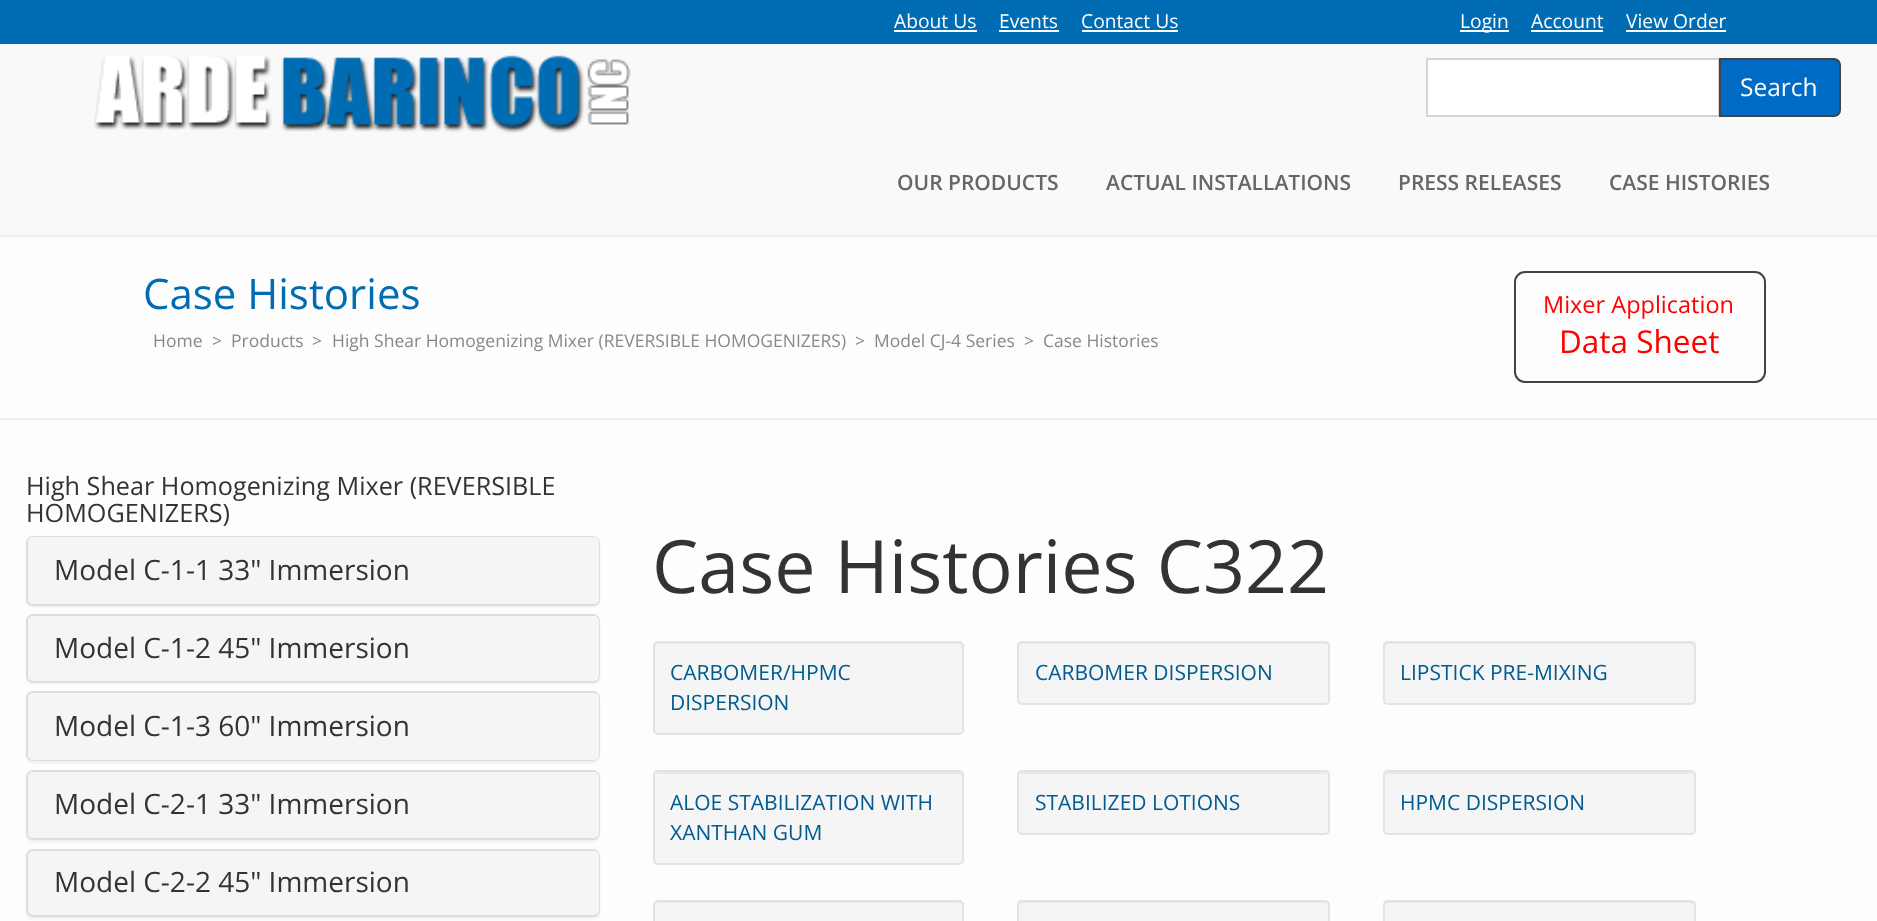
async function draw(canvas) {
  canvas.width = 1877
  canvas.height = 921
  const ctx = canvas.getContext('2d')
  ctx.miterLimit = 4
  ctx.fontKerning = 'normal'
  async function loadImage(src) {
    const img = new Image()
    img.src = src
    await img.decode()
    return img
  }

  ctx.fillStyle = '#fdfdfd'
  ctx.fillRect(0, 0, 1877, 921)
  ctx.fillStyle = '#006cb4'
  ctx.fillRect(0, 0, 1877, 44)
  ctx.font = '19.25px Open Sans'
  ctx.fillStyle = '#fff'
  ctx.fillText('About Us', 894, 28)
  ctx.fillRect(894, 30, 83, 2)
  ctx.fillText('Events', 999, 28)
  ctx.fillRect(999, 30, 60, 2)
  ctx.fillText('Contact Us', 1081, 28)
  ctx.fillRect(1082, 30, 96, 2)
  ctx.fillRect(1460, 30, 49, 2)
  ctx.fillText('Login', 1460, 28)
  ctx.fillText('Account', 1531, 28)
  ctx.fillRect(1531, 30, 72, 2)
  ctx.fillText('View Order', 1626, 28)
  ctx.fillRect(1626, 30, 100, 2)
  ctx.fillStyle = '#f9f9f9'
  ctx.fillRect(0, 44, 1877, 191)
  ctx.drawImage(await loadImage('image0.png'), 94, 55, 537, 78)
  ctx.fillStyle = '#fff'
  ctx.beginPath()
  ctx.rect(1427, 59, 292, 57)
  ctx.fill()
  ctx.strokeStyle = '#d4d4d4'
  ctx.lineWidth = 2
  ctx.stroke()
  ctx.fillStyle = '#006bc4'
  ctx.beginPath()
  ctx.roundRect(1720, 59, 120, 57, [0, 6, 6, 0])
  ctx.fill()
  ctx.strokeStyle = '#3d454c'
  ctx.stroke()
  ctx.font = '24.5px Open Sans'
  ctx.fillStyle = '#fff'
  ctx.fillText('Search', 1740, 96)
  ctx.font = '600 21px Open Sans'
  ctx.fillStyle = '#666'
  ctx.fillText('OUR PRODUCTS', 897, 190)
  ctx.fillText('ACTUAL INSTALLATIONS', 1106, 190)
  ctx.fillText('PRESS RELEASES', 1398, 190)
  ctx.fillText('CASE HISTORIES', 1609, 190)
  ctx.fillStyle = '#ededed'
  ctx.fillRect(0, 235, 1877, 2)
  ctx.fillRect(0, 418, 1877, 2)
  ctx.font = '42px Open Sans'
  ctx.fillStyle = '#006cb4'
  ctx.fillText('Case Histories', 143, 309)
  ctx.font = '17.5px Open Sans'
  ctx.fillStyle = '#888'
  ctx.fillText('Home', 153, 347)
  ctx.fillText('>', 212, 347)
  ctx.fillText('Products', 231, 347)
  ctx.fillText('>', 312, 347)
  ctx.fillText('High Shear Homogenizing Mixer (REVERSIBLE HOMOGENIZERS)', 332, 347)
  ctx.fillText('>', 855, 347)
  ctx.fillText('Model CJ-4 Series', 874, 347)
  ctx.fillText('>', 1024, 347)
  ctx.fillText('Case Histories', 1043, 347)
  ctx.beginPath()
  ctx.roundRect(1515, 272, 250, 110, 10)
  ctx.stroke()
  ctx.font = '23.5px Open Sans'
  ctx.fillStyle = '#f00'
  ctx.fillText('Mixer Application', 1543, 313)
  ctx.font = '31.5px Open Sans'
  ctx.fillText('Data Sheet', 1559, 353)
  ctx.font = '25.2px Open Sans'
  ctx.fillStyle = '#333'
  ctx.fillText('High Shear Homogenizing Mixer (REVERSIBLE', 26, 495)
  ctx.fillText('HOMOGENIZERS)', 26, 522)
  ctx.fillStyle = '#0000000d'
  ctx.filter = 'blur(1px)'
  ctx.beginPath()
  ctx.roundRect(26, 537, 574, 70, 7)
  ctx.fill()
  ctx.filter = 'none'
  ctx.beginPath()
  ctx.roundRect(27, 537, 572, 68, 6)
  ctx.strokeStyle = '#ddd'
  ctx.stroke()
  ctx.fillStyle = '#f5f5f5'
  ctx.beginPath()
  ctx.roundRect(28, 537, 571, 67, 5)
  ctx.fill()
  ctx.font = '28px Open Sans'
  ctx.fillStyle = '#333'
  ctx.fillText('Model C-1-1 33" Immersion', 54, 580)
  ctx.fillStyle = '#0000000d'
  ctx.filter = 'blur(1px)'
  ctx.beginPath()
  ctx.roundRect(26, 616, 574, 68, 7)
  ctx.fill()
  ctx.filter = 'none'
  ctx.beginPath()
  ctx.roundRect(27, 615, 572, 67, 6)
  ctx.stroke()
  ctx.fillStyle = '#f5f5f5'
  ctx.beginPath()
  ctx.roundRect(28, 616, 571, 65, 5)
  ctx.fill()
  ctx.fillStyle = '#333'
  ctx.fillText('Model C-1-2 45" Immersion', 54, 658)
  ctx.fillStyle = '#0000000d'
  ctx.filter = 'blur(1px)'
  ctx.beginPath()
  ctx.roundRect(26, 693, 574, 70, 7)
  ctx.fill()
  ctx.filter = 'none'
  ctx.beginPath()
  ctx.roundRect(27, 692, 572, 68, 6)
  ctx.stroke()
  ctx.fillStyle = '#f5f5f5'
  ctx.beginPath()
  ctx.roundRect(28, 693, 571, 67, 5)
  ctx.fill()
  ctx.fillStyle = '#333'
  ctx.fillText('Model C-1-3 60" Immersion', 54, 736)
  ctx.fillStyle = '#0000000d'
  ctx.filter = 'blur(1px)'
  ctx.beginPath()
  ctx.roundRect(26, 772, 574, 70, 7)
  ctx.fill()
  ctx.filter = 'none'
  ctx.beginPath()
  ctx.roundRect(27, 771, 572, 68, 6)
  ctx.stroke()
  ctx.fillStyle = '#f5f5f5'
  ctx.beginPath()
  ctx.roundRect(28, 772, 571, 66, 5)
  ctx.fill()
  ctx.fillStyle = '#333'
  ctx.fillText('Model C-2-1 33" Immersion', 54, 814)
  ctx.fillStyle = '#0000000d'
  ctx.filter = 'blur(1px)'
  ctx.beginPath()
  ctx.roundRect(26, 851, 574, 68, 7)
  ctx.fill()
  ctx.filter = 'none'
  ctx.beginPath()
  ctx.roundRect(27, 850, 572, 66, 6)
  ctx.stroke()
  ctx.fillStyle = '#f5f5f5'
  ctx.beginPath()
  ctx.roundRect(28, 851, 571, 64, 5)
  ctx.fill()
  ctx.fillStyle = '#333'
  ctx.fillText('Model C-2-2 45" Immersion', 54, 892)
  ctx.font = '73.5px Open Sans'
  ctx.fillText('Case Histories C322', 652, 593)
  ctx.fillStyle = '#f5f5f5'
  ctx.beginPath()
  ctx.roundRect(653, 641, 311, 94, 5)
  ctx.fill()
  ctx.fillStyle = '#e9e9e9'
  ctx.beginPath()
  ctx.moveTo(658, 644)
  ctx.lineTo(959, 644)
  ctx.bezierCurveTo(961, 644, 962, 646, 962, 648)
  ctx.lineTo(962, 732)
  ctx.bezierCurveTo(963, 731, 963, 730, 963, 729)
  ctx.lineTo(963, 646)
  ctx.bezierCurveTo(963, 644, 961, 642, 959, 642)
  ctx.lineTo(659, 642)
  ctx.bezierCurveTo(657, 642, 655, 644, 655, 645)
  ctx.closePath()
  ctx.fill()
  ctx.beginPath()
  ctx.roundRect(654, 642, 309, 92, 4)
  ctx.strokeStyle = '#e3e3e3'
  ctx.stroke()
  ctx.font = '21px Open Sans'
  ctx.fillStyle = '#005b90'
  ctx.fillText('CARBOMER/HPMC', 670, 680)
  ctx.fillText('DISPERSION', 670, 710)
  ctx.fillStyle = '#f5f5f5'
  ctx.beginPath()
  ctx.roundRect(1017, 641, 313, 64, 5)
  ctx.fill()
  ctx.fillStyle = '#e9e9e9'
  ctx.beginPath()
  ctx.moveTo(1022, 644)
  ctx.lineTo(1325, 644)
  ctx.bezierCurveTo(1327, 644, 1328, 646, 1328, 648)
  ctx.bezierCurveTo(1328, 645, 1328, 642, 1324, 642)
  ctx.lineTo(1023, 642)
  ctx.lineTo(1020, 643)
  ctx.lineTo(1019, 645)
  ctx.closePath()
  ctx.fill()
  ctx.beginPath()
  ctx.roundRect(1018, 642, 311, 62, 4)
  ctx.stroke()
  ctx.fillStyle = '#005b90'
  ctx.fillText('CARBOMER DISPERSION', 1035, 680)
  ctx.fillStyle = '#f5f5f5'
  ctx.beginPath()
  ctx.roundRect(1383, 641, 313, 64, 5)
  ctx.fill()
  ctx.fillStyle = '#e9e9e9'
  ctx.beginPath()
  ctx.moveTo(1388, 644)
  ctx.lineTo(1690, 644)
  ctx.bezierCurveTo(1692, 644, 1694, 646, 1694, 648)
  ctx.bezierCurveTo(1694, 645, 1694, 642, 1690, 642)
  ctx.lineTo(1386, 642)
  ctx.bezierCurveTo(1384, 643, 1384, 646, 1384, 648)
  ctx.bezierCurveTo(1384, 646, 1386, 644, 1388, 644)
  ctx.closePath()
  ctx.fill()
  ctx.beginPath()
  ctx.roundRect(1384, 642, 311, 62, 4)
  ctx.stroke()
  ctx.fillStyle = '#005b90'
  ctx.fillText('LIPSTICK PRE-MIXING', 1400, 680)
  ctx.fillStyle = '#f5f5f5'
  ctx.beginPath()
  ctx.roundRect(653, 770, 311, 95, 5)
  ctx.fill()
  ctx.fillStyle = '#e9e9e9'
  ctx.beginPath()
  ctx.moveTo(658, 774)
  ctx.lineTo(959, 774)
  ctx.bezierCurveTo(961, 774, 962, 775, 962, 777)
  ctx.lineTo(962, 862)
  ctx.bezierCurveTo(963, 861, 963, 860, 963, 859)
  ctx.lineTo(963, 776)
  ctx.bezierCurveTo(963, 774, 961, 772, 959, 772)
  ctx.lineTo(659, 772)
  ctx.bezierCurveTo(657, 772, 656, 773, 655, 775)
  ctx.closePath()
  ctx.fill()
  ctx.beginPath()
  ctx.roundRect(654, 771, 309, 93, 4)
  ctx.stroke()
  ctx.fillStyle = '#005b90'
  ctx.fillText('ALOE STABILIZATION WITH', 670, 810)
  ctx.fillText('XANTHAN GUM', 670, 840)
  ctx.fillStyle = '#f5f5f5'
  ctx.beginPath()
  ctx.roundRect(1017, 770, 313, 65, 5)
  ctx.fill()
  ctx.fillStyle = '#e9e9e9'
  ctx.beginPath()
  ctx.moveTo(1022, 774)
  ctx.lineTo(1325, 774)
  ctx.bezierCurveTo(1327, 774, 1328, 775, 1328, 777)
  ctx.lineTo(1328, 776)
  ctx.bezierCurveTo(1328, 774, 1326, 772, 1324, 772)
  ctx.lineTo(1023, 772)
  ctx.bezierCurveTo(1021, 772, 1020, 773, 1019, 775)
  ctx.closePath()
  ctx.fill()
  ctx.beginPath()
  ctx.roundRect(1018, 771, 311, 63, 4)
  ctx.stroke()
  ctx.fillStyle = '#005b90'
  ctx.fillText('STABILIZED LOTIONS', 1035, 810)
  ctx.fillStyle = '#f5f5f5'
  ctx.beginPath()
  ctx.roundRect(1383, 770, 313, 65, 5)
  ctx.fill()
  ctx.fillStyle = '#e9e9e9'
  ctx.beginPath()
  ctx.moveTo(1388, 774)
  ctx.lineTo(1690, 774)
  ctx.bezierCurveTo(1692, 774, 1694, 775, 1694, 777)
  ctx.bezierCurveTo(1694, 774, 1693, 772, 1690, 772)
  ctx.lineTo(1388, 772)
  ctx.lineTo(1385, 773)
  ctx.bezierCurveTo(1384, 774, 1384, 776, 1384, 777)
  ctx.bezierCurveTo(1384, 775, 1386, 774, 1388, 774)
  ctx.closePath()
  ctx.fill()
  ctx.beginPath()
  ctx.roundRect(1384, 771, 311, 63, 4)
  ctx.stroke()
  ctx.fillStyle = '#005b90'
  ctx.fillText('HPMC DISPERSION', 1400, 810)
  ctx.fillStyle = '#f5f5f5'
  ctx.beginPath()
  ctx.roundRect(653, 900, 311, 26, 5)
  ctx.fill()
  ctx.fillStyle = '#e9e9e9'
  ctx.beginPath()
  ctx.moveTo(658, 903)
  ctx.lineTo(959, 903)
  ctx.bezierCurveTo(961, 903, 962, 905, 962, 906)
  ctx.lineTo(962, 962)
  ctx.bezierCurveTo(963, 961, 963, 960, 963, 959)
  ctx.lineTo(963, 905)
  ctx.bezierCurveTo(963, 903, 961, 901, 959, 901)
  ctx.lineTo(659, 901)
  ctx.bezierCurveTo(657, 901, 655, 902, 655, 904)
  ctx.closePath()
  ctx.fill()
  ctx.beginPath()
  ctx.roundRect(654, 901, 309, 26, 4)
  ctx.stroke()
  ctx.fillStyle = '#f5f5f5'
  ctx.beginPath()
  ctx.roundRect(1017, 900, 313, 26, 5)
  ctx.fill()
  ctx.fillStyle = '#e9e9e9'
  ctx.beginPath()
  ctx.moveTo(1022, 903)
  ctx.lineTo(1325, 903)
  ctx.bezierCurveTo(1327, 903, 1328, 905, 1328, 906)
  ctx.lineTo(1328, 905)
  ctx.bezierCurveTo(1328, 903, 1326, 901, 1324, 901)
  ctx.lineTo(1023, 901)
  ctx.bezierCurveTo(1021, 901, 1019, 902, 1019, 904)
  ctx.closePath()
  ctx.fill()
  ctx.beginPath()
  ctx.roundRect(1018, 901, 311, 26, 4)
  ctx.stroke()
  ctx.fillStyle = '#f5f5f5'
  ctx.beginPath()
  ctx.roundRect(1383, 900, 313, 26, 5)
  ctx.fill()
  ctx.fillStyle = '#e9e9e9'
  ctx.beginPath()
  ctx.moveTo(1388, 903)
  ctx.lineTo(1690, 903)
  ctx.bezierCurveTo(1692, 903, 1694, 905, 1694, 906)
  ctx.bezierCurveTo(1694, 903, 1693, 901, 1690, 901)
  ctx.lineTo(1388, 901)
  ctx.lineTo(1385, 902)
  ctx.bezierCurveTo(1384, 903, 1384, 905, 1384, 906)
  ctx.bezierCurveTo(1384, 905, 1386, 903, 1388, 903)
  ctx.closePath()
  ctx.fill()
  ctx.beginPath()
  ctx.roundRect(1384, 901, 311, 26, 4)
  ctx.stroke()
}

draw(document.querySelector('canvas'))
